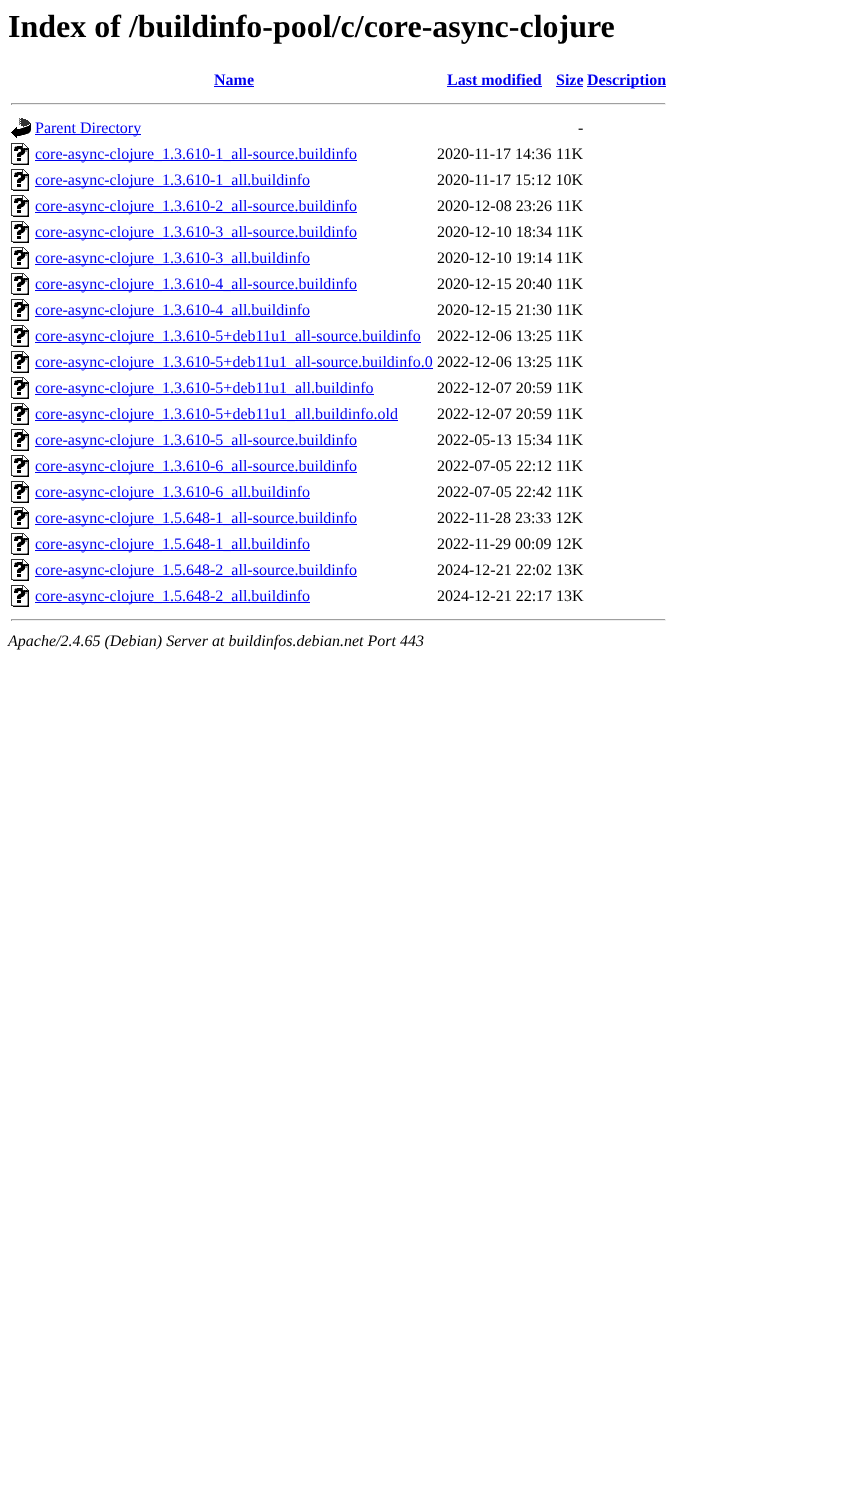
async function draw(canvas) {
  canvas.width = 858
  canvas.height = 1486
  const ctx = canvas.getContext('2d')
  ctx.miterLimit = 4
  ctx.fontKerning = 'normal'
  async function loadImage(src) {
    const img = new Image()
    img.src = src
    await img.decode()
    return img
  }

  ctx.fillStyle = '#fff'
  ctx.fillRect(0, 0, 858, 1486)
  ctx.font = 'bold 32px Liberation Serif'
  ctx.fillStyle = '#000'
  ctx.fillText('Index of /buildinfo-pool/c/core-async-clojure', 8, 37)
  ctx.font = 'bold 16px Liberation Serif'
  ctx.fillStyle = '#00e'
  ctx.fillText('Name', 214, 85)
  ctx.fillRect(214, 86, 40, 1)
  ctx.fillText('Last modified', 447, 85)
  ctx.fillRect(447, 86, 95, 1)
  ctx.fillText('Size', 556, 85)
  ctx.fillRect(556, 86, 27, 1)
  ctx.fillRect(587, 86, 79, 1)
  ctx.fillText('Description', 587, 85)
  ctx.fillStyle = '#9f9f9f'
  ctx.fillRect(11, 103, 655, 1)
  ctx.fillStyle = '#eee'
  ctx.fillRect(665, 103, 1, 2)
  ctx.fillRect(11, 104, 655, 1)
  ctx.fillStyle = '#9f9f9f'
  ctx.fillRect(11, 103, 1, 2)
  ctx.drawImage(await loadImage('image0.png'), 11, 118, 20, 20)
  ctx.fillStyle = '#00e'
  ctx.fillRect(35, 134, 106, 1)
  ctx.font = '16px Liberation Serif'
  ctx.fillText('Parent Directory', 35, 133)
  ctx.fillStyle = '#000'
  ctx.fillText('-', 578, 133)
  ctx.drawImage(await loadImage('image1.png'), 11, 143, 18, 22)
  ctx.fillStyle = '#00e'
  ctx.fillRect(35, 160, 322, 1)
  ctx.fillText('core-async-clojure_1.3.610-1_all-source.buildinfo', 35, 159)
  ctx.fillStyle = '#000'
  ctx.fillText('2020-11-17 14:36', 437, 159)
  ctx.fillText('11K', 556, 159)
  ctx.drawImage(await loadImage('image1.png'), 11, 169, 18, 22)
  ctx.fillStyle = '#00e'
  ctx.fillRect(35, 186, 275, 1)
  ctx.fillText('core-async-clojure_1.3.610-1_all.buildinfo', 35, 185)
  ctx.fillStyle = '#000'
  ctx.fillText('2020-11-17 15:12 10K', 437, 185)
  ctx.drawImage(await loadImage('image1.png'), 11, 195, 18, 22)
  ctx.fillStyle = '#00e'
  ctx.fillRect(35, 212, 322, 1)
  ctx.fillText('core-async-clojure_1.3.610-2_all-source.buildinfo', 35, 211)
  ctx.fillStyle = '#000'
  ctx.fillText('2020-12-08 23:26', 437, 211)
  ctx.fillText('11K', 556, 211)
  ctx.drawImage(await loadImage('image1.png'), 11, 221, 18, 22)
  ctx.fillStyle = '#00e'
  ctx.fillRect(35, 238, 322, 1)
  ctx.fillText('core-async-clojure_1.3.610-3_all-source.buildinfo', 35, 237)
  ctx.fillStyle = '#000'
  ctx.fillText('2020-12-10 18:34', 437, 237)
  ctx.fillText('11K', 556, 237)
  ctx.drawImage(await loadImage('image1.png'), 11, 247, 18, 22)
  ctx.fillStyle = '#00e'
  ctx.fillRect(35, 264, 275, 1)
  ctx.fillText('core-async-clojure_1.3.610-3_all.buildinfo', 35, 263)
  ctx.fillStyle = '#000'
  ctx.fillText('2020-12-10 19:14', 437, 263)
  ctx.fillText('11K', 556, 263)
  ctx.drawImage(await loadImage('image1.png'), 11, 273, 18, 22)
  ctx.fillStyle = '#00e'
  ctx.fillRect(35, 290, 322, 1)
  ctx.fillText('core-async-clojure_1.3.610-4_all-source.buildinfo', 35, 289)
  ctx.fillStyle = '#000'
  ctx.fillText('2020-12-15 20:40', 437, 289)
  ctx.fillText('11K', 556, 289)
  ctx.drawImage(await loadImage('image1.png'), 11, 299, 18, 22)
  ctx.fillStyle = '#00e'
  ctx.fillRect(35, 316, 275, 1)
  ctx.fillText('core-async-clojure_1.3.610-4_all.buildinfo', 35, 315)
  ctx.fillStyle = '#000'
  ctx.fillText('2020-12-15 21:30', 437, 315)
  ctx.fillText('11K', 556, 315)
  ctx.drawImage(await loadImage('image1.png'), 11, 325, 18, 22)
  ctx.fillStyle = '#00e'
  ctx.fillRect(35, 342, 386, 1)
  ctx.fillText('core-async-clojure_1.3.610-5+deb11u1_all-source.buildinfo', 35, 341)
  ctx.fillStyle = '#000'
  ctx.fillText('2022-12-06 13:25', 437, 341)
  ctx.fillText('11K', 556, 341)
  ctx.drawImage(await loadImage('image1.png'), 11, 351, 18, 22)
  ctx.fillStyle = '#00e'
  ctx.fillRect(35, 368, 398, 1)
  ctx.fillText('core-async-clojure_1.3.610-5+deb11u1_all-source.buildinfo.0', 35, 367)
  ctx.fillStyle = '#000'
  ctx.fillText('2022-12-06 13:25', 437, 367)
  ctx.fillText('11K', 556, 367)
  ctx.drawImage(await loadImage('image1.png'), 11, 377, 18, 22)
  ctx.fillStyle = '#00e'
  ctx.fillRect(35, 394, 339, 1)
  ctx.fillText('core-async-clojure_1.3.610-5+deb11u1_all.buildinfo', 35, 393)
  ctx.fillStyle = '#000'
  ctx.fillText('2022-12-07 20:59', 437, 393)
  ctx.fillText('11K', 556, 393)
  ctx.drawImage(await loadImage('image1.png'), 11, 403, 18, 22)
  ctx.fillStyle = '#00e'
  ctx.fillRect(35, 420, 363, 1)
  ctx.fillText('core-async-clojure_1.3.610-5+deb11u1_all.buildinfo.old', 35, 419)
  ctx.fillStyle = '#000'
  ctx.fillText('2022-12-07 20:59', 437, 419)
  ctx.fillText('11K', 556, 419)
  ctx.drawImage(await loadImage('image1.png'), 11, 429, 18, 22)
  ctx.fillStyle = '#00e'
  ctx.fillRect(35, 446, 322, 1)
  ctx.fillText('core-async-clojure_1.3.610-5_all-source.buildinfo', 35, 445)
  ctx.fillStyle = '#000'
  ctx.fillText('2022-05-13 15:34', 437, 445)
  ctx.fillText('11K', 556, 445)
  ctx.drawImage(await loadImage('image1.png'), 11, 455, 18, 22)
  ctx.fillStyle = '#00e'
  ctx.fillRect(35, 472, 322, 1)
  ctx.fillText('core-async-clojure_1.3.610-6_all-source.buildinfo', 35, 471)
  ctx.fillStyle = '#000'
  ctx.fillText('2022-07-05 22:12', 437, 471)
  ctx.fillText('11K', 556, 471)
  ctx.drawImage(await loadImage('image1.png'), 11, 481, 18, 22)
  ctx.fillStyle = '#00e'
  ctx.fillRect(35, 498, 275, 1)
  ctx.fillText('core-async-clojure_1.3.610-6_all.buildinfo', 35, 497)
  ctx.fillStyle = '#000'
  ctx.fillText('2022-07-05 22:42', 437, 497)
  ctx.fillText('11K', 556, 497)
  ctx.drawImage(await loadImage('image1.png'), 11, 507, 18, 22)
  ctx.fillStyle = '#00e'
  ctx.fillRect(35, 524, 322, 1)
  ctx.fillText('core-async-clojure_1.5.648-1_all-source.buildinfo', 35, 523)
  ctx.fillStyle = '#000'
  ctx.fillText('2022-11-28 23:33 12K', 437, 523)
  ctx.drawImage(await loadImage('image1.png'), 11, 533, 18, 22)
  ctx.fillStyle = '#00e'
  ctx.fillRect(35, 550, 275, 1)
  ctx.fillText('core-async-clojure_1.5.648-1_all.buildinfo', 35, 549)
  ctx.fillStyle = '#000'
  ctx.fillText('2022-11-29 00:09 12K', 437, 549)
  ctx.drawImage(await loadImage('image1.png'), 11, 559, 18, 22)
  ctx.fillStyle = '#00e'
  ctx.fillRect(35, 576, 322, 1)
  ctx.fillText('core-async-clojure_1.5.648-2_all-source.buildinfo', 35, 575)
  ctx.fillStyle = '#000'
  ctx.fillText('2024-12-21 22:02 13K', 437, 575)
  ctx.drawImage(await loadImage('image1.png'), 11, 585, 18, 22)
  ctx.fillStyle = '#00e'
  ctx.fillRect(35, 602, 275, 1)
  ctx.fillText('core-async-clojure_1.5.648-2_all.buildinfo', 35, 601)
  ctx.fillStyle = '#000'
  ctx.fillText('2024-12-21 22:17 13K', 437, 601)
  ctx.fillStyle = '#9f9f9f'
  ctx.fillRect(11, 619, 655, 1)
  ctx.fillStyle = '#eee'
  ctx.fillRect(665, 619, 1, 2)
  ctx.fillRect(11, 620, 655, 1)
  ctx.fillStyle = '#9f9f9f'
  ctx.fillRect(11, 619, 1, 2)
  ctx.font = 'italic 16px Liberation Serif'
  ctx.fillStyle = '#000'
  ctx.fillText('Apache/2.4.65 (Debian) Server at buildinfos.debian.net Port 443', 8, 646)
}

draw(document.querySelector('canvas'))
